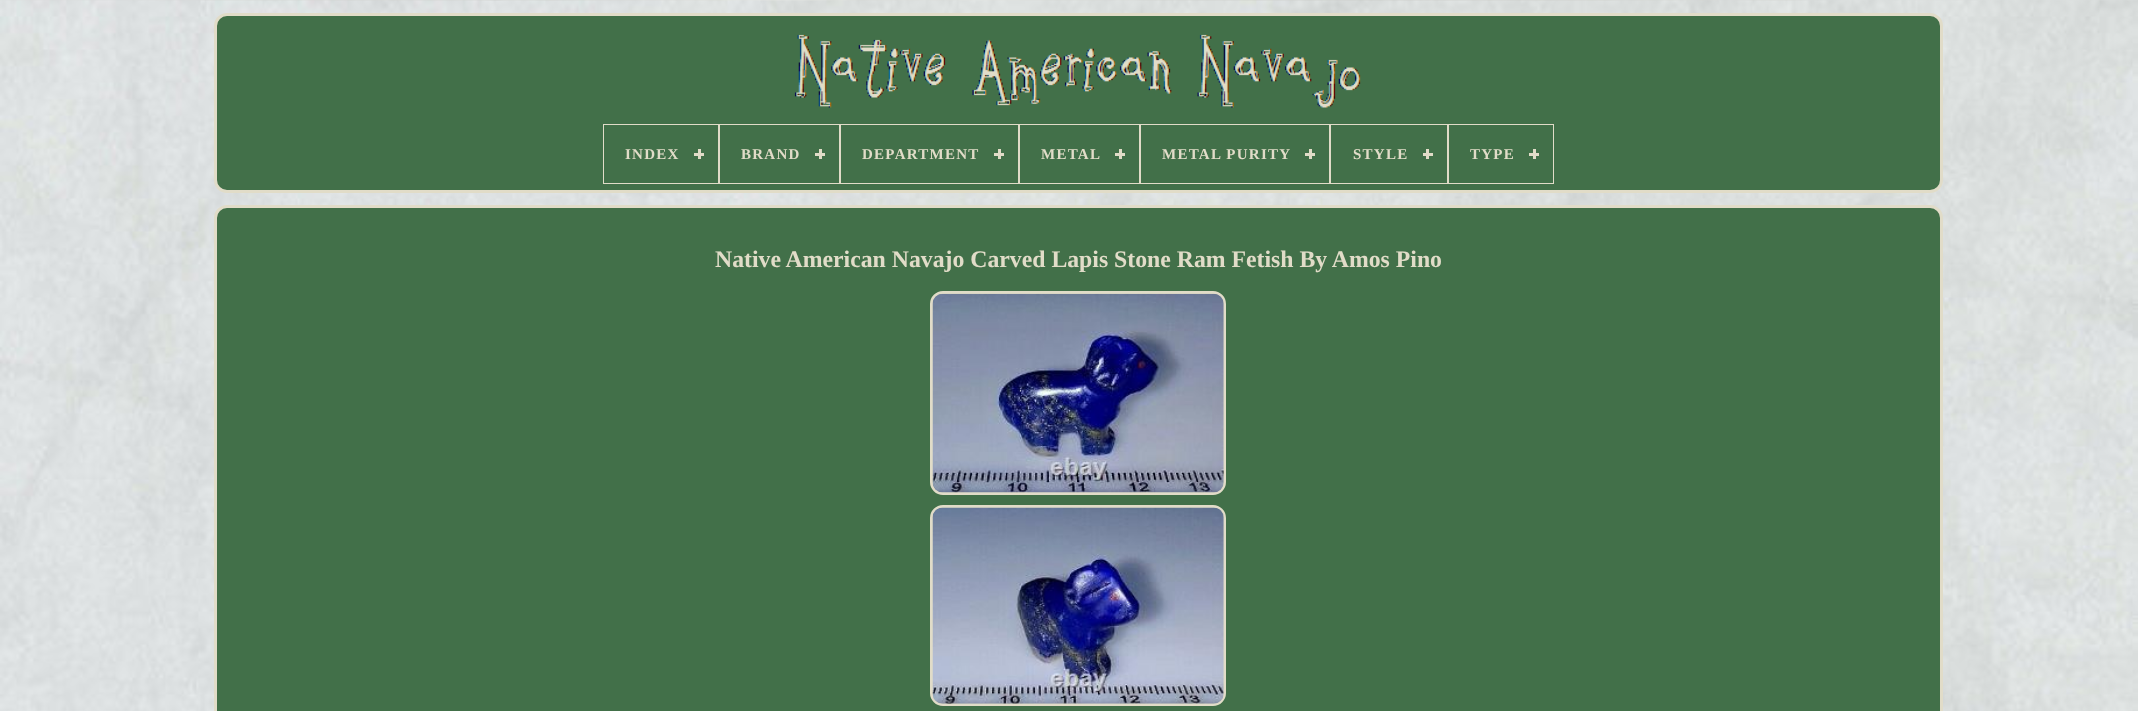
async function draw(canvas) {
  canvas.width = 2138
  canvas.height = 711
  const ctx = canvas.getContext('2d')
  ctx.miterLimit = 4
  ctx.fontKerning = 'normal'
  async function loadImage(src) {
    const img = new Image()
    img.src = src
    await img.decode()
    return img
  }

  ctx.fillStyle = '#fff'
  ctx.fillRect(0, 0, 2138, 711)
  ctx.drawImage(await loadImage('image0.png'), 0, 0, 2138, 711)
  ctx.fillStyle = '#427049'
  ctx.beginPath()
  ctx.roundRect(215.5, 14.5, 1726, 177, 11.5)
  ctx.fill()
  ctx.strokeStyle = '#e1dcc8'
  ctx.lineWidth = 3
  ctx.stroke()
  ctx.drawImage(await loadImage('image1.png'), 794, 34, 567, 74)
  ctx.lineWidth = 1
  ctx.strokeRect(603.5, 124.5, 115, 59)
  ctx.letterSpacing = '1.25px'
  ctx.font = 'bold 15px Liberation Serif'
  ctx.fillStyle = '#e1dcc8'
  ctx.fillText('INDEX', 625, 159)
  ctx.fillRect(698, 149, 3, 10)
  ctx.fillRect(694, 153, 10, 3)
  ctx.strokeRect(719.5, 124.5, 120, 59)
  ctx.fillText('BRAND', 741, 159)
  ctx.fillRect(819, 149, 3, 10)
  ctx.fillRect(815, 153, 10, 3)
  ctx.strokeRect(840.5, 124.5, 178, 59)
  ctx.fillText('DEPARTMENT', 862, 159)
  ctx.fillRect(998, 149, 3, 10)
  ctx.fillRect(994, 153, 10, 3)
  ctx.strokeRect(1019.5, 124.5, 120, 59)
  ctx.fillText('METAL', 1041, 159)
  ctx.fillRect(1119, 149, 3, 10)
  ctx.fillRect(1115, 153, 10, 3)
  ctx.strokeRect(1140.5, 124.5, 189, 59)
  ctx.fillText('METAL PURITY', 1162, 159)
  ctx.fillRect(1309, 149, 3, 10)
  ctx.fillRect(1305, 153, 10, 3)
  ctx.strokeRect(1330.5, 124.5, 117, 59)
  ctx.fillText('STYLE', 1353, 159)
  ctx.fillRect(1426, 149, 3, 10)
  ctx.fillRect(1423, 153, 10, 3)
  ctx.strokeRect(1448.5, 124.5, 105, 59)
  ctx.fillText('TYPE', 1470, 159)
  ctx.fillRect(1533, 149, 3, 10)
  ctx.fillRect(1529, 153, 10, 3)
  ctx.fillStyle = '#427049'
  ctx.beginPath()
  ctx.roundRect(215.5, 206.5, 1726, 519, 11.5)
  ctx.fill()
  ctx.lineWidth = 3
  ctx.stroke()
  ctx.letterSpacing = '0px'
  ctx.font = 'bold 23.75px Liberation Serif'
  ctx.fillStyle = '#e1dcc8'
  ctx.fillText('Native American Navajo Carved Lapis Stone Ram Fetish By Amos Pino', 715, 267)
  ctx.beginPath()
  ctx.roundRect(931.5, 292.5, 293, 201, 11.5)
  ctx.stroke()
  ctx.drawImage(await loadImage('image2.png'), 932, 293, 292, 200)
  ctx.beginPath()
  ctx.roundRect(931.5, 506.5, 293, 198, 11.5)
  ctx.stroke()
  ctx.drawImage(await loadImage('image3.png'), 932, 507, 292, 197)
}

draw(document.querySelector('canvas'))
